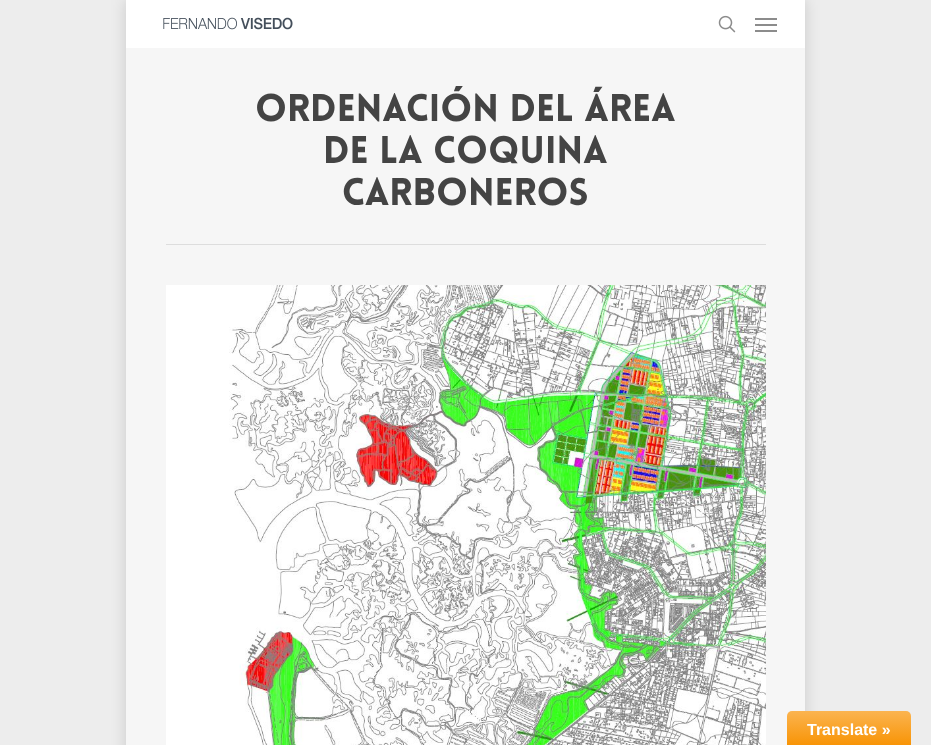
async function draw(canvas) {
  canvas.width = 931
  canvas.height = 745
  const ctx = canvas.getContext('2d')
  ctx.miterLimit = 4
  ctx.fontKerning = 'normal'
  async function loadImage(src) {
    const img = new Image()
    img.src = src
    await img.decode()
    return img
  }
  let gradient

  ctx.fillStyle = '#ededed'
  ctx.fillRect(0, 0, 931, 745)
  ctx.fillStyle = '#00000026'
  ctx.filter = 'blur(7.5px)'
  ctx.beginPath()
  ctx.rect(126, 0, 679, 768)
  ctx.fill()
  ctx.filter = 'none'
  ctx.fillStyle = '#fff'
  ctx.fillRect(126, 0, 679, 48)
  ctx.drawImage(await loadImage('image0.png'), 163, 17, 130, 13)
  ctx.drawImage(await loadImage('image1.png'), 718, 15, 18, 18)
  ctx.fillStyle = '#8c8c8c'
  ctx.fillRect(755, 18, 22, 2)
  ctx.fillRect(755, 30, 22, 2)
  ctx.fillRect(755, 24, 22, 2)
  ctx.fillStyle = '#f6f6f6'
  ctx.fillRect(126, 48, 679, 697)
  ctx.fillStyle = '#ddd'
  ctx.fillRect(166, 244, 600, 1)
  ctx.font = '900 37.75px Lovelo'
  ctx.fillStyle = '#444'
  ctx.fillText('Ordenación Del Área', 255, 121)
  ctx.fillText('De La Coquina', 323, 163)
  ctx.fillText('Carboneros', 342, 205)
  ctx.drawImage(await loadImage('image2.png'), 166, 285, 600, 460)
  gradient = ctx.createLinearGradient(849, 711, 849, 745)
  gradient.addColorStop(0, '#fbb450')
  gradient.addColorStop(1, '#f89406')
  ctx.fillStyle = gradient
  ctx.beginPath()
  ctx.roundRect(787, 711, 124, 34, [5, 5, 0, 0])
  ctx.fill()
  ctx.font = 'bold 16px Liberation Sans'
  ctx.fillStyle = '#fff'
  ctx.fillText('Translate »', 807, 735)
}

draw(document.querySelector('canvas'))
